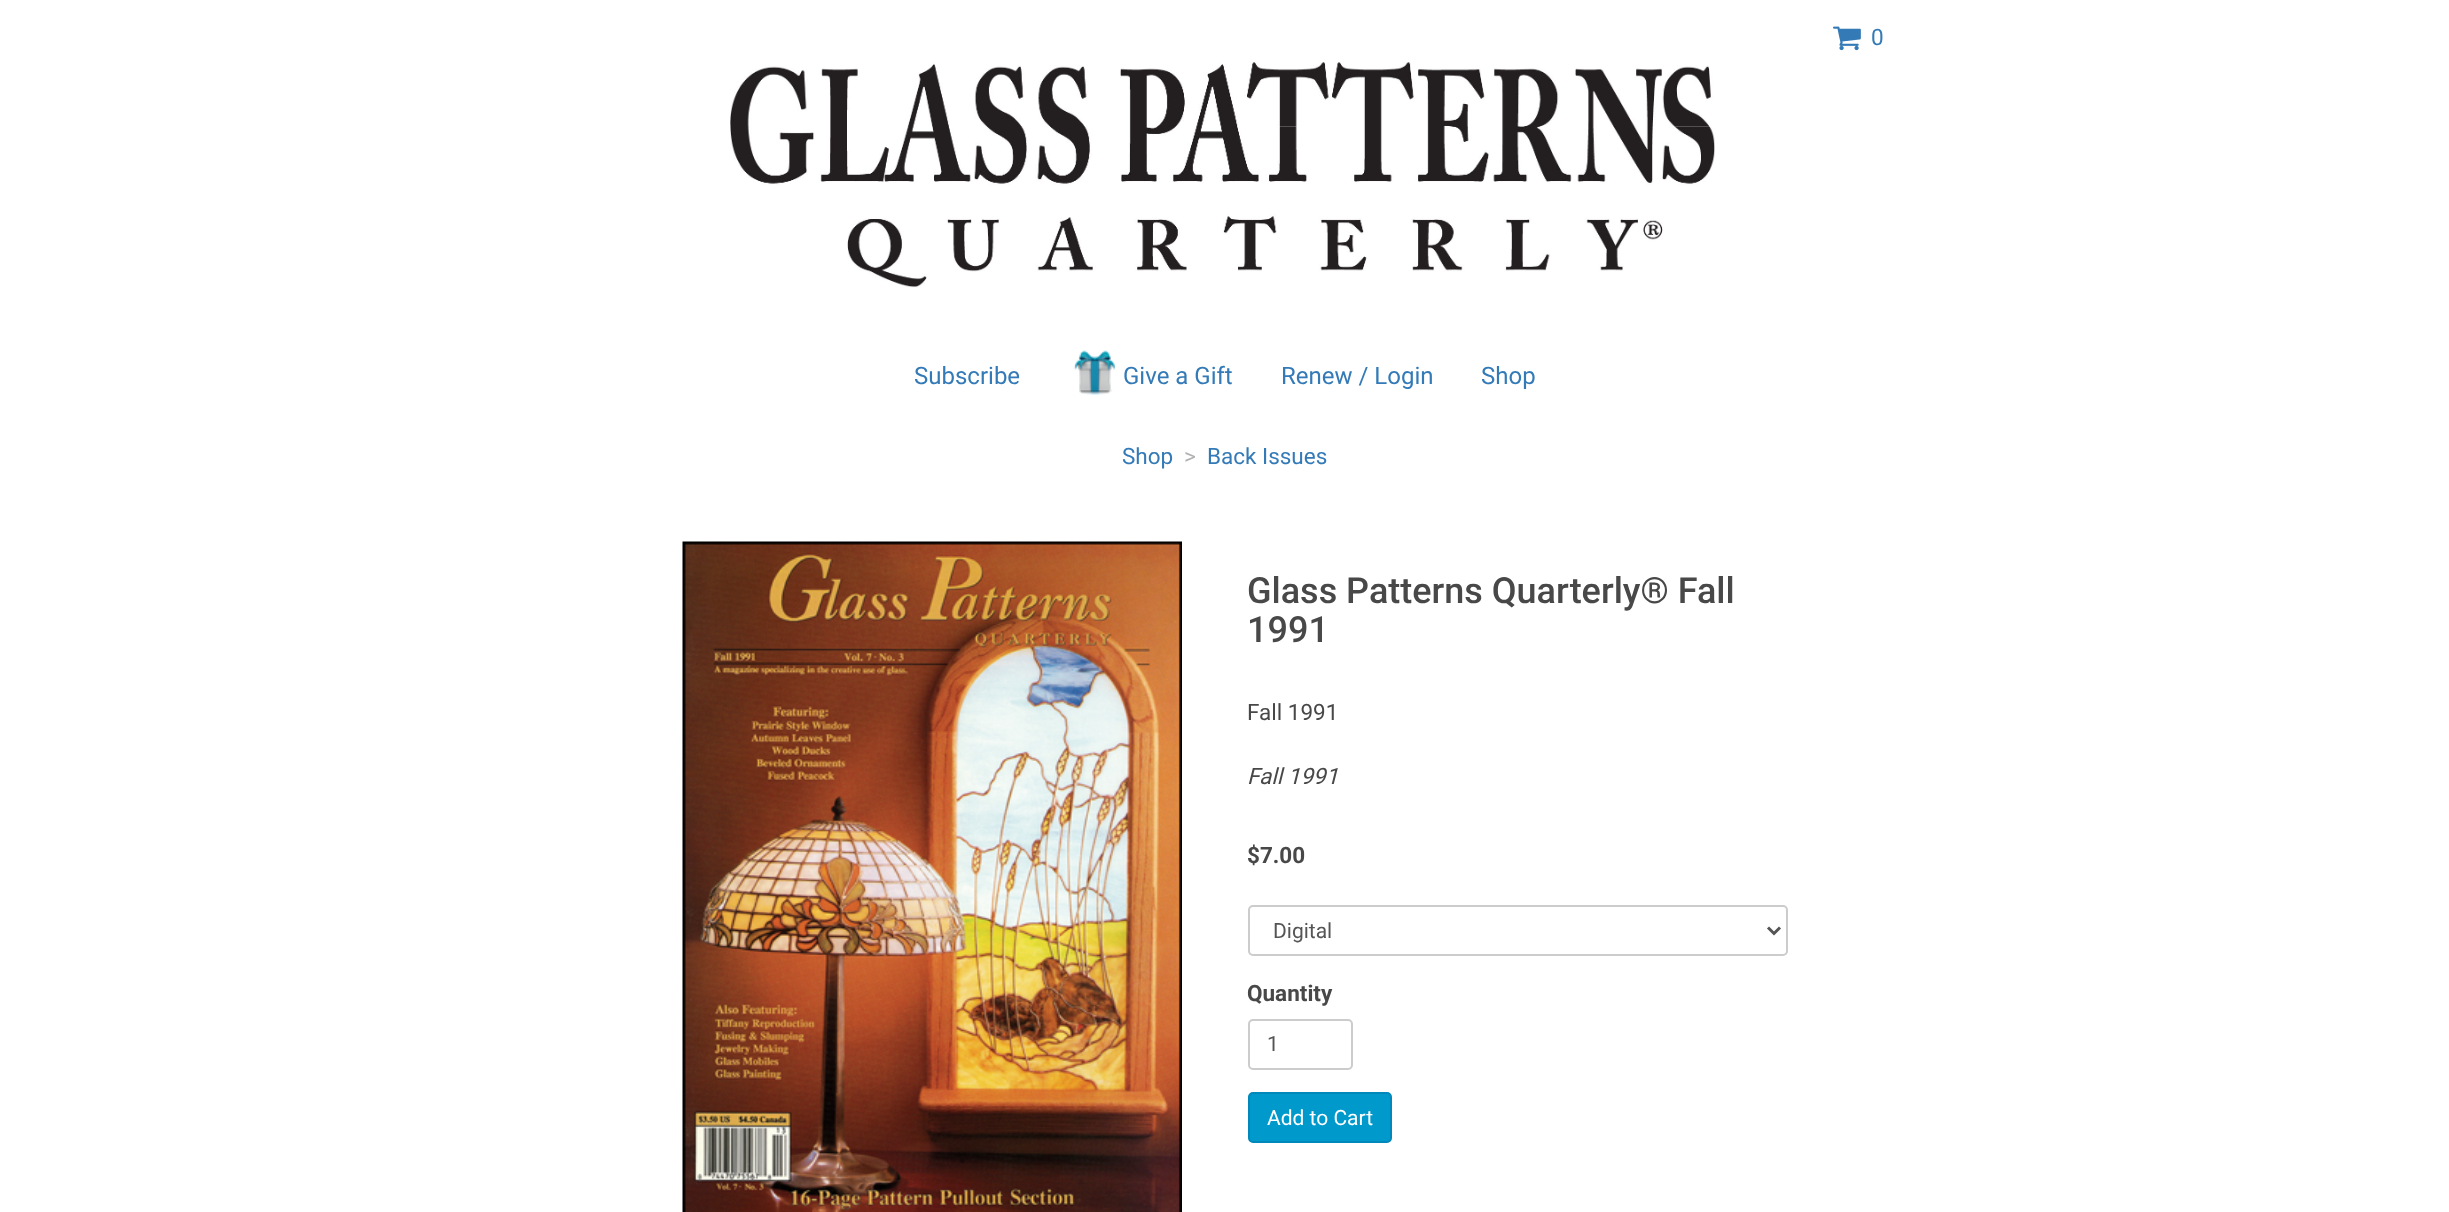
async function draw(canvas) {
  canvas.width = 2449
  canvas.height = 1212
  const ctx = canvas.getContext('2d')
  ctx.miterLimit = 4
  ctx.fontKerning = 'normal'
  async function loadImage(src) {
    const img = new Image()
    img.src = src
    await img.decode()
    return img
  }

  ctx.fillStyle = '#fff'
  ctx.fillRect(0, 0, 2449, 1212)
  ctx.drawImage(await loadImage('image0.png'), 1833, 26, 28, 25)
  ctx.font = '22.5px Roboto'
  ctx.fillStyle = '#337ab7'
  ctx.fillText('0', 1871, 45)
  ctx.drawImage(await loadImage('image1.png'), 730, 62, 985, 226)
  ctx.font = '24px Roboto'
  ctx.fillText('Subscribe', 914, 384)
  ctx.drawImage(await loadImage('image2.png'), 1073, 350, 43, 45)
  ctx.fillText('Give a Gift', 1123, 384)
  ctx.fillText('Renew / Login', 1281, 384)
  ctx.fillText('Shop', 1481, 384)
  ctx.font = '22.5px Roboto'
  ctx.fillText('Shop', 1122, 464)
  ctx.fillStyle = '#b1b1b1'
  ctx.fillText('>', 1184, 464)
  ctx.fillStyle = '#337ab7'
  ctx.fillText('Back Issues', 1207, 464)
  ctx.drawImage(await loadImage('image3.png'), 682, 541, 500, 671)
  ctx.font = '500 36px Roboto'
  ctx.fillStyle = '#484848'
  ctx.fillText('Glass Patterns Quarterly® Fall', 1247, 603)
  ctx.fillText('1991', 1247, 642)
  ctx.font = '22.5px Roboto'
  ctx.fillText('Fall 1991', 1247, 720)
  ctx.font = 'italic 22.5px Roboto'
  ctx.fillText('Fall 1991', 1247, 784)
  ctx.font = 'bold 22.5px Roboto'
  ctx.fillText('$7.00', 1247, 863)
  ctx.beginPath()
  ctx.roundRect(1249, 906, 538, 49, 4)
  ctx.strokeStyle = '#ccc'
  ctx.lineWidth = 2
  ctx.stroke()
  ctx.beginPath()
  ctx.moveTo(1768, 927.5)
  ctx.lineTo(1774, 933.5)
  ctx.lineTo(1780, 927.5)
  ctx.strokeStyle = '#555'
  ctx.lineWidth = 3
  ctx.stroke()
  ctx.font = '21px Roboto'
  ctx.fillStyle = '#555'
  ctx.fillText('Digital', 1273, 938)
  ctx.font = 'bold 22.5px Roboto'
  ctx.fillStyle = '#484848'
  ctx.fillText('Quantity', 1247, 1001)
  ctx.beginPath()
  ctx.roundRect(1249, 1020, 103, 49, 4)
  ctx.strokeStyle = '#ccc'
  ctx.lineWidth = 2
  ctx.stroke()
  ctx.font = '21px Roboto'
  ctx.fillStyle = '#555'
  ctx.fillText('1', 1267, 1051)
  ctx.fillStyle = '#09c'
  ctx.beginPath()
  ctx.roundRect(1249, 1093, 142, 49, 4)
  ctx.fill()
  ctx.strokeStyle = '#08b'
  ctx.stroke()
  ctx.fillStyle = '#fff'
  ctx.fillText('Add to Cart', 1267, 1125)
}

draw(document.querySelector('canvas'))
